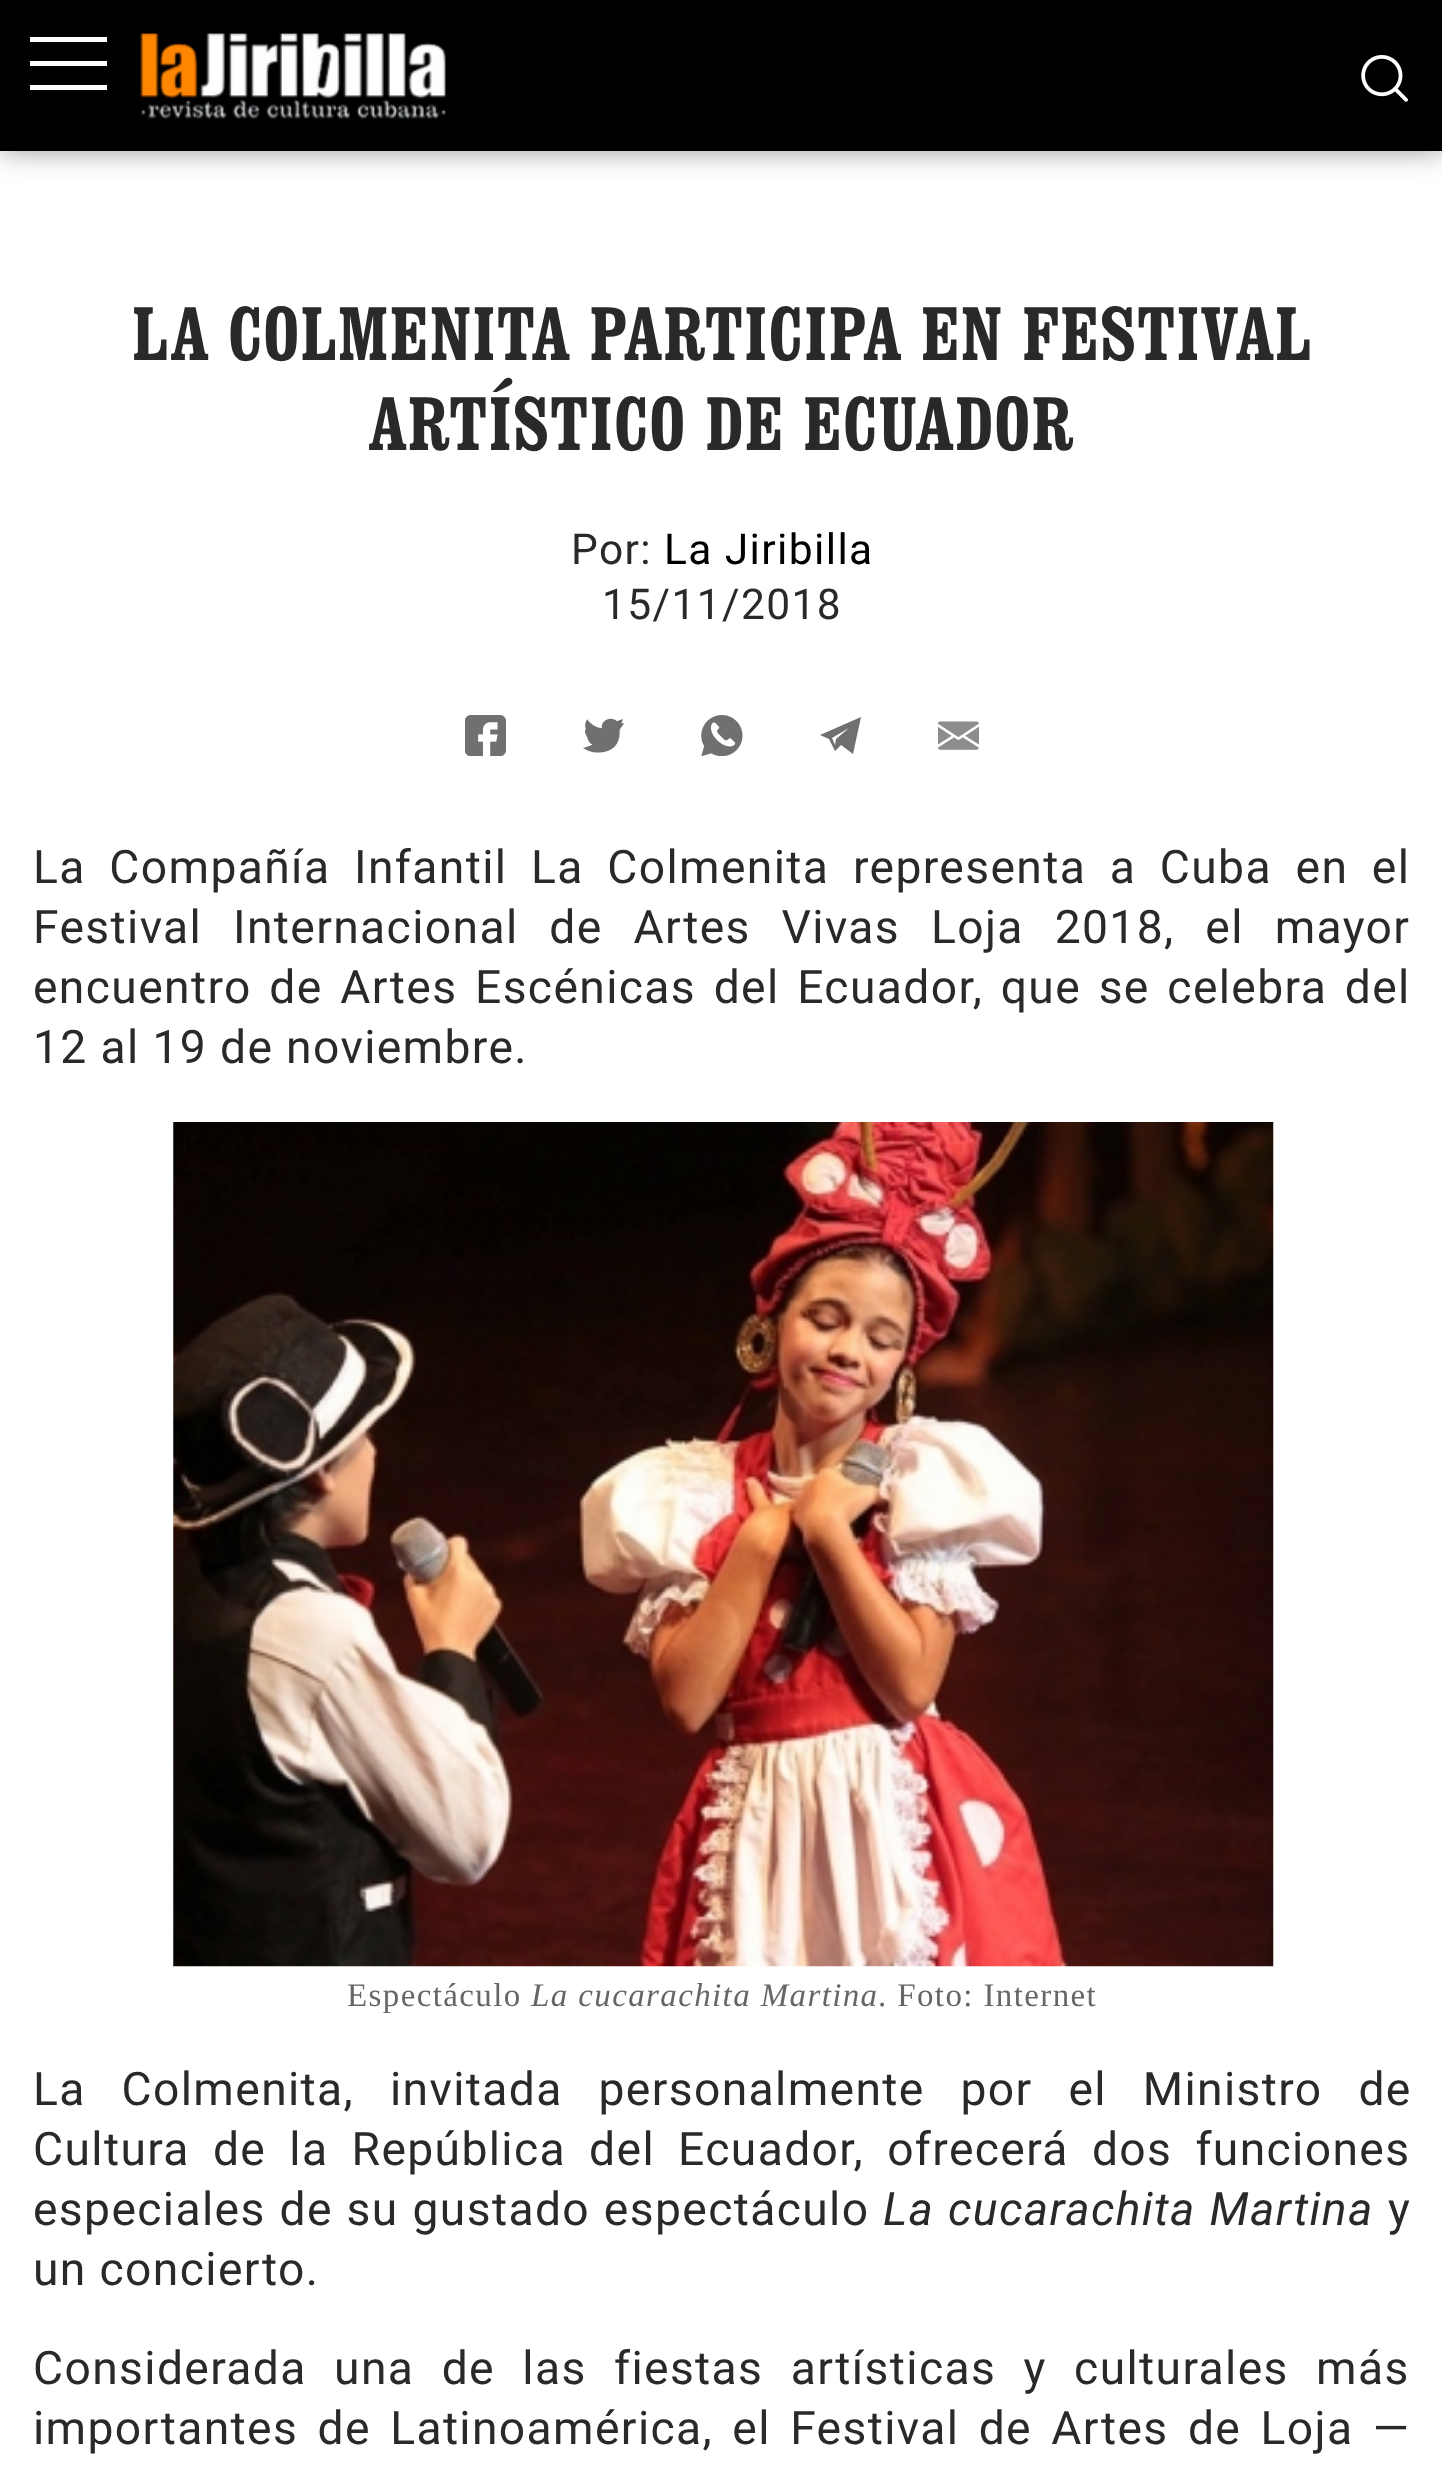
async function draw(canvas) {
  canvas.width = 1442
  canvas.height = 2470
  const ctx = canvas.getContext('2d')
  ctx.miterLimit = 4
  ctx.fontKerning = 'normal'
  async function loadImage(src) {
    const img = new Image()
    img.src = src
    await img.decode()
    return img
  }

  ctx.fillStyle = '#fff'
  ctx.fillRect(0, 0, 1442, 2470)
  ctx.fillStyle = '#00000066'
  ctx.filter = 'blur(14px)'
  ctx.beginPath()
  ctx.rect(0, 0, 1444, 151)
  ctx.fill()
  ctx.filter = 'none'
  ctx.fillStyle = '#000'
  ctx.fillRect(0, 0, 1442, 151)
  ctx.fillStyle = '#fff'
  ctx.beginPath()
  ctx.moveTo(30, 37)
  ctx.lineTo(30, 42)
  ctx.lineTo(107, 42)
  ctx.lineTo(107, 37)
  ctx.closePath()
  ctx.moveTo(30, 66)
  ctx.lineTo(107, 66)
  ctx.lineTo(107, 61)
  ctx.lineTo(30, 61)
  ctx.closePath()
  ctx.moveTo(30, 90)
  ctx.lineTo(107, 90)
  ctx.lineTo(107, 85)
  ctx.lineTo(30, 85)
  ctx.closePath()
  ctx.fill()
  ctx.drawImage(await loadImage('image0.png'), 139, 33, 307, 86)
  ctx.drawImage(await loadImage('image1.png'), 1361, 55, 47, 47)
  ctx.letterSpacing = '1.38px'
  ctx.font = 'bold 74.6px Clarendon'
  ctx.fillStyle = '#292929'
  ctx.fillText('LA COLMENITA PARTICIPA EN FESTIVAL', 132, 360)
  ctx.fillText('ARTÍSTICO DE ECUADOR', 369, 450)
  ctx.font = '42.5px Roboto'
  ctx.fillText('Por:', 571, 564)
  ctx.fillStyle = '#000'
  ctx.fillText('La Jiribilla', 664, 564)
  ctx.fillStyle = '#292929'
  ctx.fillText('15/11/2018', 602, 619)
  ctx.drawImage(await loadImage('image2.png'), 465, 715, 41, 41)
  ctx.drawImage(await loadImage('image3.png'), 583, 718, 41, 35)
  ctx.drawImage(await loadImage('image4.png'), 701, 715, 42, 41)
  ctx.fillStyle = '#707070'
  ctx.beginPath()
  ctx.moveTo(829, 739)
  ctx.lineTo(835, 751)
  ctx.lineTo(841, 745)
  ctx.lineTo(853, 754)
  ctx.lineTo(861, 717)
  ctx.lineTo(820, 735)
  ctx.closePath()
  ctx.moveTo(849, 728)
  ctx.lineTo(836, 739)
  ctx.lineTo(835, 745)
  ctx.lineTo(832, 738)
  ctx.closePath()
  ctx.fill()
  ctx.drawImage(await loadImage('image5.png'), 938, 721, 41, 29)
  ctx.wordSpacing = '10.75px'
  ctx.font = '46.2px Roboto'
  ctx.fillStyle = '#292929'
  ctx.fillText('La Compañía Infantil La Colmenita representa a Cuba en el', 33, 883)
  ctx.wordSpacing = '18px'
  ctx.fillText('Festival Internacional de Artes Vivas Loja 2018, el mayor', 33, 943)
  ctx.wordSpacing = '4.75px'
  ctx.fillText('encuentro de Artes Escénicas del Ecuador, que se celebra del', 33, 1003)
  ctx.wordSpacing = '0px'
  ctx.fillText('12 al 19 de noviembre.', 33, 1063)
  ctx.drawImage(await loadImage('image6.png'), 173, 1122, 1101, 845)
  ctx.font = '33px Liberation Serif'
  ctx.fillStyle = '#666'
  ctx.fillText('Espectáculo', 347, 2006)
  ctx.font = 'italic 33px Liberation Serif'
  ctx.fillText('La cucarachita Martina', 531, 2006)
  ctx.font = '33px Liberation Serif'
  ctx.fillText('. Foto: Internet', 878, 2006)
  ctx.wordSpacing = '23px'
  ctx.font = '46.2px Roboto'
  ctx.fillStyle = '#292929'
  ctx.fillText('La Colmenita, invitada personalmente por el Ministro de', 33, 2105)
  ctx.wordSpacing = '10.25px'
  ctx.fillText('Cultura de la República del Ecuador, ofrecerá dos funciones', 33, 2165)
  ctx.wordSpacing = '1px'
  ctx.fillText('especiales de su gustado espectáculo', 33, 2225)
  ctx.font = 'italic 46.2px Roboto'
  ctx.fillText('La cucarachita Martina', 883, 2225)
  ctx.wordSpacing = '0px'
  ctx.font = '46.2px Roboto'
  ctx.fillText('y', 1388, 2225)
  ctx.fillText('un concierto.', 33, 2285)
  ctx.wordSpacing = '14.5px'
  ctx.fillText('Considerada una de las fiestas artísticas y culturales más', 33, 2384)
  ctx.wordSpacing = '6.5px'
  ctx.fillText('importantes de Latinoamérica, el Festival de Artes de Loja —', 33, 2444)
}

draw(document.querySelector('canvas'))
